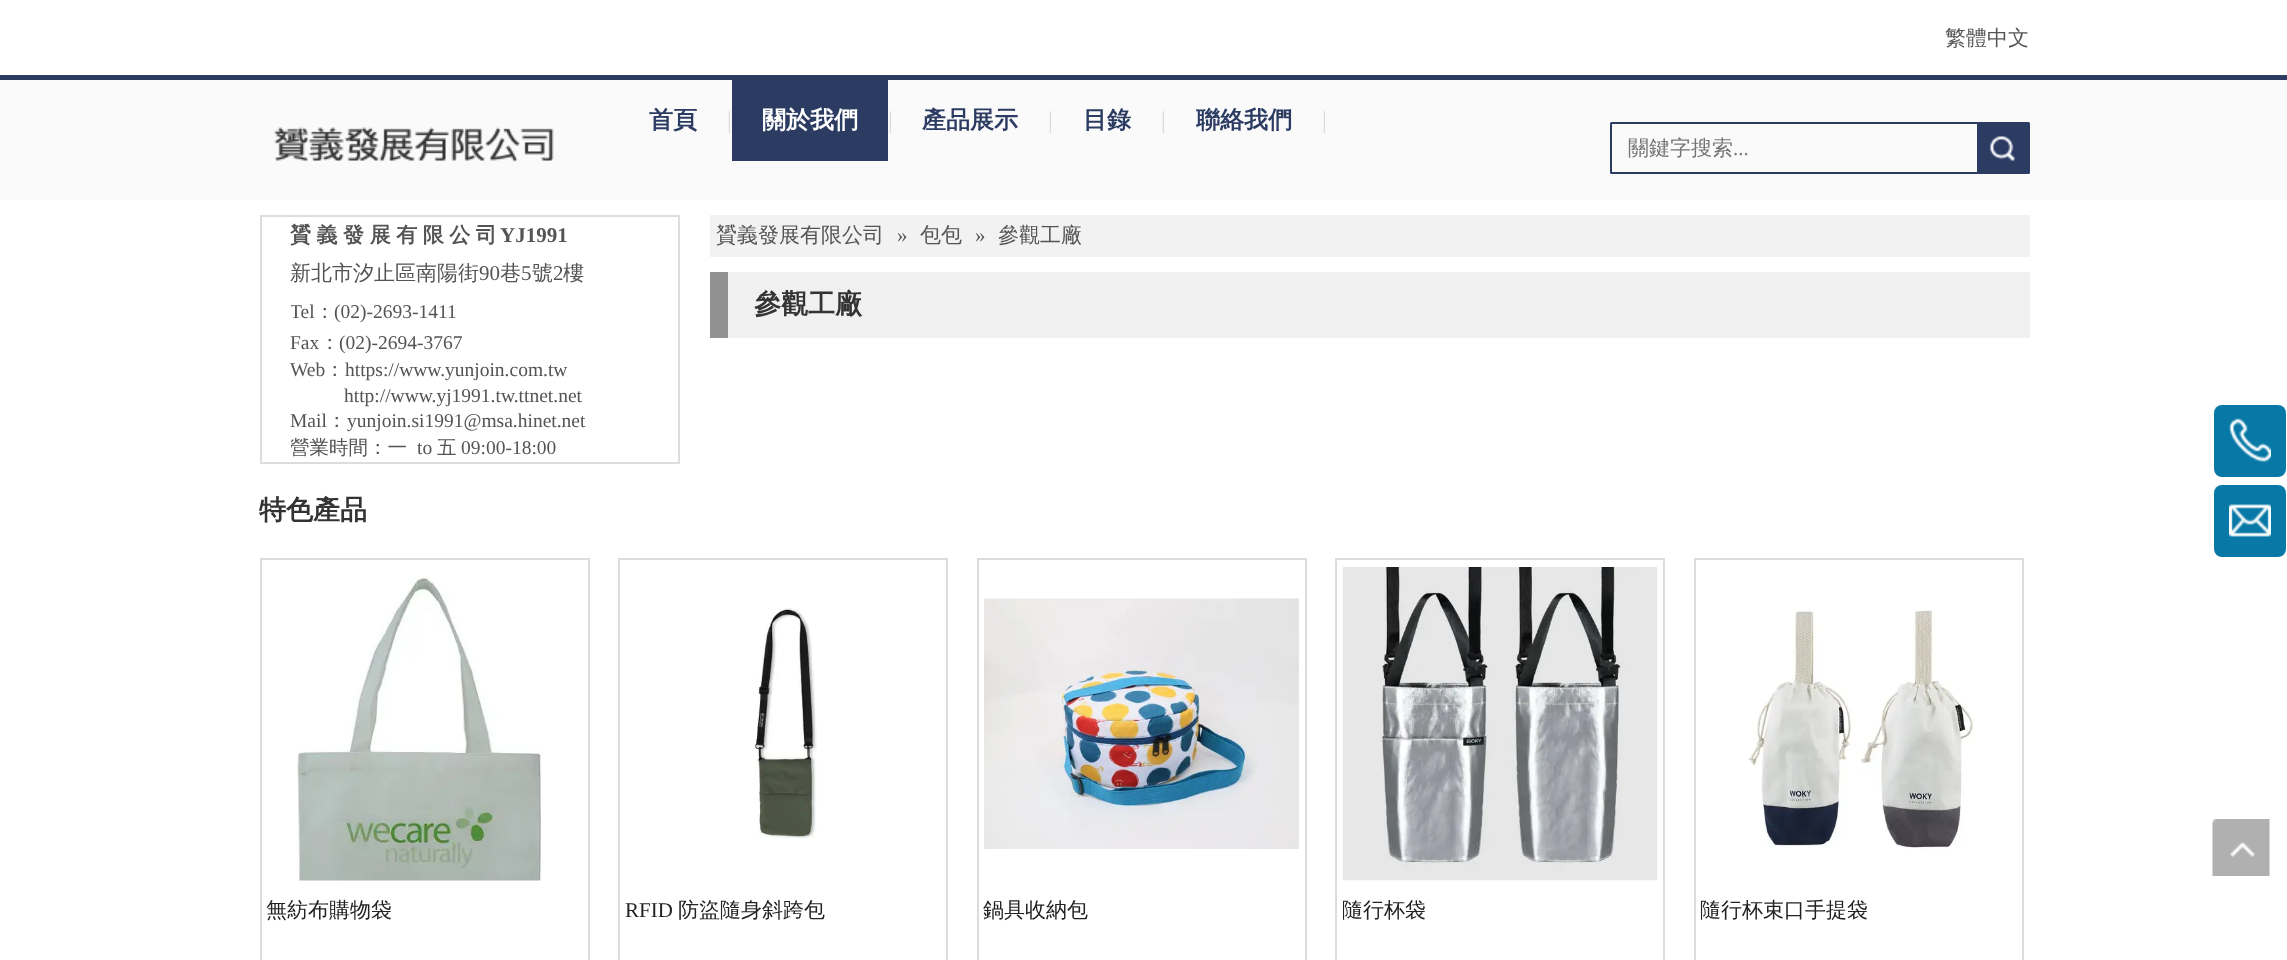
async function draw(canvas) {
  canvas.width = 2287
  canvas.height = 960
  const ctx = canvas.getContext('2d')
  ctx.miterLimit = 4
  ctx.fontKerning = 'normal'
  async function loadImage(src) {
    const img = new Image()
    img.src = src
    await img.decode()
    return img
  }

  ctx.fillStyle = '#fff'
  ctx.fillRect(0, 0, 2287, 960)
  ctx.font = '500 21px WenQuanYi Zen Hei'
  ctx.fillStyle = '#545454'
  ctx.fillText('繁體中文', 1945, 45)
  ctx.fillStyle = '#fafafa'
  ctx.fillRect(0, 80, 2287, 120)
  ctx.fillStyle = '#2b3b62'
  ctx.fillRect(0, 75, 2287, 5)
  ctx.font = 'bold 24px WenQuanYi Zen Hei'
  ctx.fillText('首頁', 649, 128)
  ctx.font = '24px Liberation Serif'
  ctx.fillStyle = '#dbdbdb'
  ctx.fillText('|', 727, 128)
  ctx.fillStyle = '#2b3b62'
  ctx.fillRect(732, 80, 156, 81)
  ctx.font = 'bold 24px WenQuanYi Zen Hei'
  ctx.fillStyle = '#fff'
  ctx.fillText('關於我們', 762, 128)
  ctx.font = '24px Liberation Serif'
  ctx.fillStyle = '#dbdbdb'
  ctx.fillText('|', 888, 128)
  ctx.font = 'bold 24px WenQuanYi Zen Hei'
  ctx.fillStyle = '#2b3b62'
  ctx.fillText('產品展示', 922, 128)
  ctx.font = '24px Liberation Serif'
  ctx.fillStyle = '#dbdbdb'
  ctx.fillText('|', 1048, 128)
  ctx.font = 'bold 24px WenQuanYi Zen Hei'
  ctx.fillStyle = '#2b3b62'
  ctx.fillText('目錄', 1083, 128)
  ctx.font = '24px Liberation Serif'
  ctx.fillStyle = '#dbdbdb'
  ctx.fillText('|', 1161, 128)
  ctx.font = 'bold 24px WenQuanYi Zen Hei'
  ctx.fillStyle = '#2b3b62'
  ctx.fillText('聯絡我們', 1196, 128)
  ctx.font = '24px Liberation Serif'
  ctx.fillStyle = '#dbdbdb'
  ctx.fillText('|', 1322, 128)
  ctx.drawImage(await loadImage('image0.png'), 274, 127, 280, 36)
  ctx.beginPath()
  ctx.roundRect(1611, 123, 418, 50, 0.5)
  ctx.strokeStyle = '#2b3b62'
  ctx.lineWidth = 2
  ctx.stroke()
  ctx.font = '500 21px WenQuanYi Zen Hei'
  ctx.fillStyle = '#757575'
  ctx.fillText('關鍵字搜索', 1628, 155)
  ctx.font = '21px Liberation Serif'
  ctx.fillText('...', 1733, 155)
  ctx.fillStyle = '#2b3b62'
  ctx.fillRect(1977, 124, 51, 48)
  ctx.drawImage(await loadImage('image1.png'), 1990, 136, 25, 25)
  ctx.strokeStyle = '#ddd'
  ctx.strokeRect(261, 216, 418, 247)
  ctx.wordSpacing = '-0.75px'
  ctx.font = 'bold 21px WenQuanYi Zen Hei'
  ctx.fillStyle = '#545454'
  ctx.fillText('贇 義 發 展 有 限 公 司', 290, 242)
  ctx.wordSpacing = '0px'
  ctx.font = 'bold 21px Liberation Serif'
  ctx.fillText('YJ1991', 500, 242)
  ctx.font = '500 21px WenQuanYi Zen Hei'
  ctx.fillText('新北市汐止區南陽街', 290, 280)
  ctx.font = '21px Liberation Serif'
  ctx.fillText('90', 479, 280)
  ctx.font = '500 21px WenQuanYi Zen Hei'
  ctx.fillText('巷', 500, 280)
  ctx.font = '21px Liberation Serif'
  ctx.fillText('5', 521, 280)
  ctx.font = '500 21px WenQuanYi Zen Hei'
  ctx.fillText('號', 532, 280)
  ctx.font = '21px Liberation Serif'
  ctx.fillText('2', 553, 280)
  ctx.font = '500 21px WenQuanYi Zen Hei'
  ctx.fillText('樓', 563, 280)
  ctx.save()
  ctx.beginPath()
  ctx.rect(291, 216, 357, 246)
  ctx.clip()
  ctx.font = '19.5px Liberation Serif'
  ctx.fillText('Tel', 290, 318)
  ctx.restore()
  ctx.font = '500 19.5px WenQuanYi Zen Hei'
  ctx.fillText('：', 315, 318)
  ctx.font = '19.5px Liberation Serif'
  ctx.fillText('(02)-2693-1411', 334, 318)
  ctx.fillText('Fax', 290, 349)
  ctx.font = '500 19.5px WenQuanYi Zen Hei'
  ctx.fillText('：', 320, 349)
  ctx.font = '19.5px Liberation Serif'
  ctx.fillText('(02)-2694-3767', 339, 349)
  ctx.fillText('Web', 290, 376)
  ctx.font = '500 19.5px WenQuanYi Zen Hei'
  ctx.fillText('：', 325, 376)
  ctx.font = '19.5px Liberation Serif'
  ctx.fillText('https://www.yunjoin.com.tw', 345, 376)
  ctx.fillText('http://www.yj1991.tw.ttnet.net', 344, 402)
  ctx.fillText('Mail', 290, 427)
  ctx.font = '500 19.5px WenQuanYi Zen Hei'
  ctx.fillText('：', 327, 427)
  ctx.font = '19.5px Liberation Serif'
  ctx.fillText('yunjoin.si1991@msa.hinet.net', 347, 427)
  ctx.save()
  ctx.beginPath()
  ctx.rect(291, 216, 357, 246)
  ctx.clip()
  ctx.font = '500 19.5px WenQuanYi Zen Hei'
  ctx.fillText('營業時間：一', 290, 454)
  ctx.restore()
  ctx.fillText('to', 417, 454)
  ctx.font = '500 19.5px WenQuanYi Zen Hei'
  ctx.fillText('五', 437, 454)
  ctx.font = '19.5px Liberation Serif'
  ctx.fillText('09:00-18:00', 461, 454)
  ctx.fillStyle = '#f2f2f2'
  ctx.fillRect(710, 215, 1320, 42)
  ctx.font = '500 21px WenQuanYi Zen Hei'
  ctx.fillStyle = '#545454'
  ctx.fillText('贇義發展有限公司', 716, 242)
  ctx.font = '21px Liberation Serif'
  ctx.fillText('»', 897, 242)
  ctx.font = '500 21px WenQuanYi Zen Hei'
  ctx.fillText('包包', 920, 242)
  ctx.font = '21px Liberation Serif'
  ctx.fillText('»', 975, 242)
  ctx.font = '500 21px WenQuanYi Zen Hei'
  ctx.fillText('參觀工廠', 998, 242)
  ctx.fillStyle = '#f0f0f0'
  ctx.fillRect(728, 272, 1302, 66)
  ctx.fillStyle = '#919191'
  ctx.fillRect(710, 272, 18, 66)
  ctx.font = 'bold 27px WenQuanYi Zen Hei'
  ctx.fillStyle = '#333'
  ctx.fillText('參觀工廠', 754, 313)
  ctx.fillText('特色產品', 259, 519)
  ctx.strokeStyle = '#dcdcdc'
  ctx.strokeRect(261, 559, 328, 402)
  ctx.drawImage(await loadImage('image2.png'), 297, 577, 245, 304)
  ctx.font = '500 21px WenQuanYi Zen Hei'
  ctx.fillStyle = '#222'
  ctx.fillText('無紡布購物袋', 266, 917)
  ctx.strokeRect(619, 559, 328, 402)
  ctx.drawImage(await loadImage('image3.png'), 754, 608, 63, 231)
  ctx.font = '21px Liberation Serif'
  ctx.fillText('RFID', 625, 917)
  ctx.font = '500 21px WenQuanYi Zen Hei'
  ctx.fillText('防盜隨身斜跨包', 678, 917)
  ctx.strokeRect(978, 559, 328, 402)
  ctx.drawImage(await loadImage('image4.png'), 984, 598, 315, 251)
  ctx.fillText('鍋具收納包', 983, 917)
  ctx.strokeRect(1336, 559, 328, 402)
  ctx.drawImage(await loadImage('image5.png'), 1342, 567, 316, 314)
  ctx.save()
  ctx.beginPath()
  ctx.rect(1343, 896, 315, 60)
  ctx.clip()
  ctx.fillText('隨行杯袋', 1342, 917)
  ctx.restore()
  ctx.strokeRect(1695, 559, 328, 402)
  ctx.drawImage(await loadImage('image6.png'), 1748, 610, 226, 239)
  ctx.fillText('隨行杯束口手提袋', 1700, 917)
  ctx.fillStyle = '#0879a7'
  ctx.beginPath()
  ctx.roundRect(2214, 405, 72, 72, 8)
  ctx.fill()
  ctx.drawImage(await loadImage('image7.png'), 2229, 418, 42, 44)
  ctx.beginPath()
  ctx.roundRect(2214, 485, 72, 72, 8)
  ctx.fill()
  ctx.drawImage(await loadImage('image8.png'), 2229, 504, 42, 33)
  ctx.drawImage(await loadImage('image9.png'), 2212, 819, 58, 57)
}

draw(document.querySelector('canvas'))
